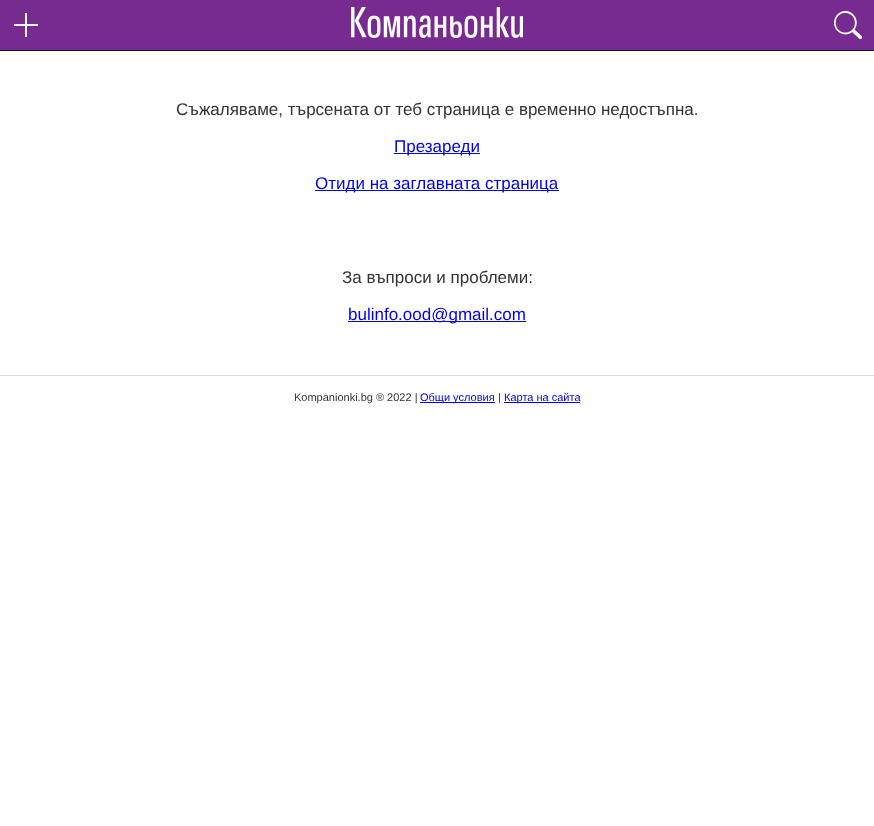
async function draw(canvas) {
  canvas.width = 874
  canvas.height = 826
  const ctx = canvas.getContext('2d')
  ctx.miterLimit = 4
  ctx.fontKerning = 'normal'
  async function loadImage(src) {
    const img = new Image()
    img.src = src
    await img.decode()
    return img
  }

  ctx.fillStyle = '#fff'
  ctx.fillRect(0, 0, 874, 826)
  ctx.fillStyle = '#772a90'
  ctx.fillRect(0, 0, 874, 50)
  ctx.fillStyle = '#111'
  ctx.fillRect(0, 50, 874, 1)
  ctx.fillStyle = '#fff'
  ctx.fillRect(25, 13, 2, 24)
  ctx.fillRect(14, 24, 24, 2)
  ctx.drawImage(await loadImage('image0.png'), 351, 7, 172, 31)
  ctx.drawImage(await loadImage('image1.png'), 834, 11, 28, 29)
  ctx.font = '17px Liberation Sans'
  ctx.fillStyle = '#333'
  ctx.fillText('Съжаляваме, търсената от теб страница е временно недостъпна.', 176, 115)
  ctx.fillStyle = '#00e'
  ctx.fillRect(394, 153, 86, 1)
  ctx.fillText('Презареди', 394, 152)
  ctx.fillRect(315, 190, 244, 1)
  ctx.fillText('Отиди на заглавната страница', 315, 189)
  ctx.fillStyle = '#333'
  ctx.fillText('За въпроси и проблеми:', 342, 283)
  ctx.fillStyle = '#00e'
  ctx.fillRect(348, 321, 178, 1)
  ctx.fillText('bulinfo.ood@gmail.com', 348, 320)
  ctx.fillStyle = '#ddd'
  ctx.fillRect(0, 375, 874, 1)
  ctx.font = '11px Liberation Sans'
  ctx.fillStyle = '#333'
  ctx.fillText('Kompanionki.bg ® 2022 |', 294, 401)
  ctx.fillStyle = '#00e'
  ctx.fillRect(420, 402, 75, 1)
  ctx.fillText('Общи условия', 420, 401)
  ctx.fillStyle = '#333'
  ctx.fillText('|', 498, 401)
  ctx.fillStyle = '#00e'
  ctx.fillRect(504, 402, 76, 1)
  ctx.fillText('Карта на сайта', 504, 401)
}

draw(document.querySelector('canvas'))
